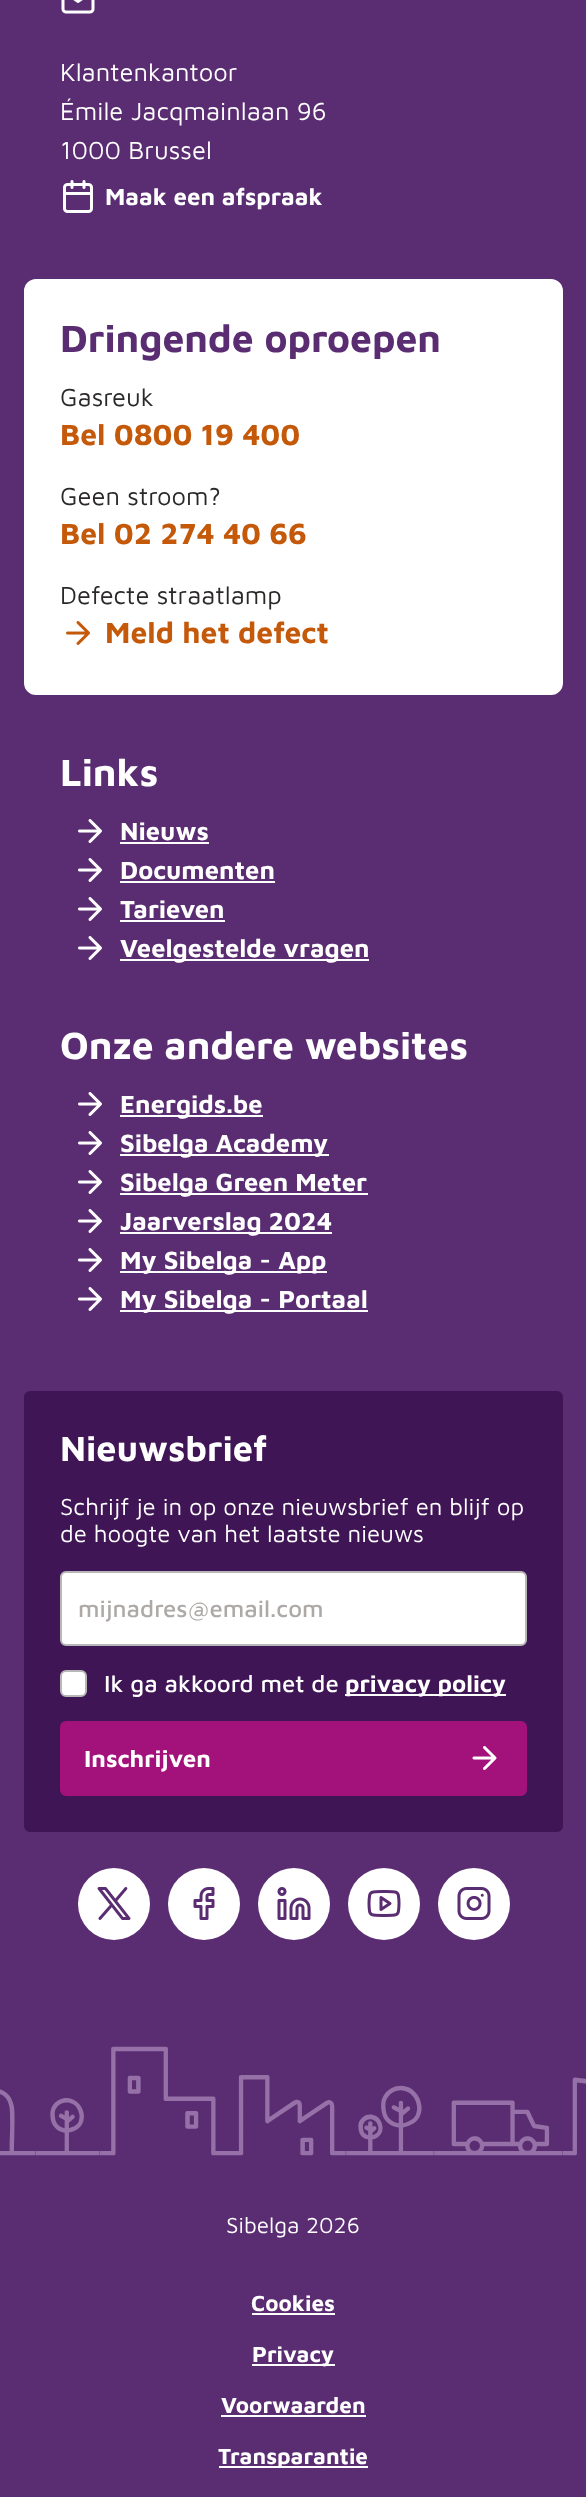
async function draw(canvas) {
  canvas.width = 586
  canvas.height = 2497
  const ctx = canvas.getContext('2d')
  ctx.miterLimit = 4
  ctx.fontKerning = 'normal'
  async function loadImage(src) {
    const img = new Image()
    img.src = src
    await img.decode()
    return img
  }

  ctx.fillStyle = '#5a2c71'
  ctx.fillRect(0, 0, 586, 2497)
  ctx.drawImage(await loadImage('image0.png'), 0, 2046, 586, 110)
  ctx.drawImage(await loadImage('image1.png'), 61, 0, 34, 14)
  ctx.font = '25.5px Maven Pro'
  ctx.fillStyle = '#fff'
  ctx.fillText('Klantenkantoor', 60, 81)
  ctx.fillText('Émile Jacqmainlaan 96', 60, 120)
  ctx.fillText('1000 Brussel', 60, 159)
  ctx.drawImage(await loadImage('image2.png'), 63, 180, 30, 33)
  ctx.font = 'bold 24px Maven Pro'
  ctx.fillText('Maak een afspraak', 105, 205)
  ctx.beginPath()
  ctx.roundRect(25, 280, 537, 414, 11)
  ctx.fill()
  ctx.strokeStyle = '#fff'
  ctx.lineWidth = 2
  ctx.stroke()
  ctx.font = 'bold 39px Maven Pro'
  ctx.fillStyle = '#5a2c71'
  ctx.fillText('Dringende oproepen', 60, 352)
  ctx.font = '25.5px Maven Pro'
  ctx.fillStyle = '#2b2828'
  ctx.fillText('Gasreuk', 60, 406)
  ctx.font = 'bold 30px Maven Pro'
  ctx.fillStyle = '#c5590a'
  ctx.fillText('Bel 0800 19 400', 60, 445)
  ctx.font = '25.5px Maven Pro'
  ctx.fillStyle = '#2b2828'
  ctx.fillText('Geen stroom?', 60, 505)
  ctx.font = 'bold 30px Maven Pro'
  ctx.fillStyle = '#c5590a'
  ctx.fillText('Bel 02 274 40 66', 60, 544)
  ctx.font = '25.5px Maven Pro'
  ctx.fillStyle = '#2b2828'
  ctx.fillText('Defecte straatlamp', 60, 604)
  ctx.drawImage(await loadImage('image3.png'), 66, 621, 24, 24)
  ctx.font = 'bold 30px Maven Pro'
  ctx.fillStyle = '#c5590a'
  ctx.fillText('Meld het defect', 105, 643)
  ctx.font = 'bold 39px Maven Pro'
  ctx.fillStyle = '#fff'
  ctx.fillText('Links', 60, 786)
  ctx.drawImage(await loadImage('image4.png'), 78, 819, 24, 24)
  ctx.font = 'bold 25.5px Maven Pro'
  ctx.fillText('Nieuws', 120, 840)
  ctx.fillRect(120, 842, 89, 2)
  ctx.drawImage(await loadImage('image4.png'), 78, 858, 24, 24)
  ctx.fillText('Documenten', 120, 879)
  ctx.fillRect(120, 881, 155, 2)
  ctx.drawImage(await loadImage('image4.png'), 78, 897, 24, 24)
  ctx.fillText('Tarieven', 120, 918)
  ctx.fillRect(120, 920, 105, 2)
  ctx.drawImage(await loadImage('image4.png'), 78, 936, 24, 24)
  ctx.fillRect(120, 959, 249, 2)
  ctx.fillText('Veelgestelde vragen', 120, 957)
  ctx.font = 'bold 39px Maven Pro'
  ctx.fillText('Onze andere websites', 60, 1059)
  ctx.drawImage(await loadImage('image4.png'), 78, 1092, 24, 24)
  ctx.fillRect(120, 1115, 143, 2)
  ctx.font = 'bold 25.5px Maven Pro'
  ctx.fillText('Energids.be', 120, 1113)
  ctx.drawImage(await loadImage('image4.png'), 78, 1131, 24, 24)
  ctx.fillRect(120, 1154, 209, 2)
  ctx.fillText('Sibelga Academy', 120, 1152)
  ctx.drawImage(await loadImage('image4.png'), 78, 1170, 24, 24)
  ctx.fillRect(120, 1193, 248, 2)
  ctx.fillText('Sibelga Green Meter', 120, 1191)
  ctx.drawImage(await loadImage('image4.png'), 78, 1209, 24, 24)
  ctx.fillRect(120, 1232, 212, 2)
  ctx.fillText('Jaarverslag 2024', 120, 1230)
  ctx.drawImage(await loadImage('image4.png'), 78, 1248, 24, 24)
  ctx.fillRect(120, 1271, 207, 2)
  ctx.fillText('My Sibelga - App', 120, 1269)
  ctx.drawImage(await loadImage('image4.png'), 78, 1287, 24, 24)
  ctx.fillRect(120, 1310, 248, 2)
  ctx.fillText('My Sibelga - Portaal', 120, 1308)
  ctx.fillStyle = '#401556'
  ctx.beginPath()
  ctx.roundRect(25, 1392, 537, 439, 5)
  ctx.fill()
  ctx.strokeStyle = '#401556'
  ctx.stroke()
  ctx.font = 'bold 36px Maven Pro'
  ctx.fillStyle = '#fff'
  ctx.fillText('Nieuwsbrief', 60, 1461)
  ctx.font = '24px Maven Pro'
  ctx.fillText('Schrijf je in op onze nieuwsbrief en blijf op', 60, 1515)
  ctx.fillText('de hoogte van het laatste nieuws', 60, 1542)
  ctx.beginPath()
  ctx.roundRect(61, 1572, 465, 73, 5)
  ctx.fill()
  ctx.strokeStyle = '#b7b7b7'
  ctx.stroke()
  ctx.font = '500 24px Maven Pro'
  ctx.fillStyle = '#ada9a7'
  ctx.fillText('mijnadres@email.com', 78, 1617)
  ctx.fillStyle = '#fff'
  ctx.beginPath()
  ctx.roundRect(61, 1671, 25, 25, 5)
  ctx.fill()
  ctx.stroke()
  ctx.fillText('Ik ga akkoord met de', 104, 1692)
  ctx.fillRect(345, 1694, 161, 2)
  ctx.font = 'bold 24px Maven Pro'
  ctx.fillText('privacy policy', 345, 1692)
  ctx.fillStyle = '#a3117b'
  ctx.beginPath()
  ctx.roundRect(61.5, 1722.5, 464, 72, 4.5)
  ctx.fill()
  ctx.strokeStyle = '#a3117b'
  ctx.lineWidth = 3
  ctx.stroke()
  ctx.fillStyle = '#fff'
  ctx.fillText('Inschrijven', 84, 1767)
  ctx.drawImage(await loadImage('image5.png'), 472, 1746, 25, 24)
  ctx.beginPath()
  ctx.arc(114, 1904, 36, 0, 2 * Math.PI)
  ctx.fill()
  ctx.drawImage(await loadImage('image6.png'), 97, 1887, 34, 33)
  ctx.beginPath()
  ctx.arc(204, 1904, 36, 0, 2 * Math.PI)
  ctx.fill()
  ctx.drawImage(await loadImage('image7.png'), 193, 1887, 22, 33)
  ctx.beginPath()
  ctx.arc(294, 1904, 36, 0, 2 * Math.PI)
  ctx.fill()
  ctx.drawImage(await loadImage('image8.png'), 277, 1887, 34, 33)
  ctx.beginPath()
  ctx.arc(384, 1904, 36, 0, 2 * Math.PI)
  ctx.fill()
  ctx.drawImage(await loadImage('image9.png'), 367, 1890, 34, 27)
  ctx.beginPath()
  ctx.arc(474, 1904, 36, 0, 2 * Math.PI)
  ctx.fill()
  ctx.drawImage(await loadImage('image10.png'), 457, 1887, 34, 33)
  ctx.font = '22.5px Maven Pro'
  ctx.fillText('Sibelga 2026', 226, 2233)
  ctx.font = 'bold 22.5px Maven Pro'
  ctx.fillText('Cookies', 251, 2311)
  ctx.fillRect(252, 2313, 83, 2)
  ctx.fillRect(252, 2364, 83, 2)
  ctx.fillText('Privacy', 252, 2362)
  ctx.fillText('Voorwaarden', 221, 2413)
  ctx.fillRect(221, 2415, 145, 2)
  ctx.fillRect(219, 2466, 149, 2)
  ctx.fillText('Transparantie', 218, 2464)
}

draw(document.querySelector('canvas'))
